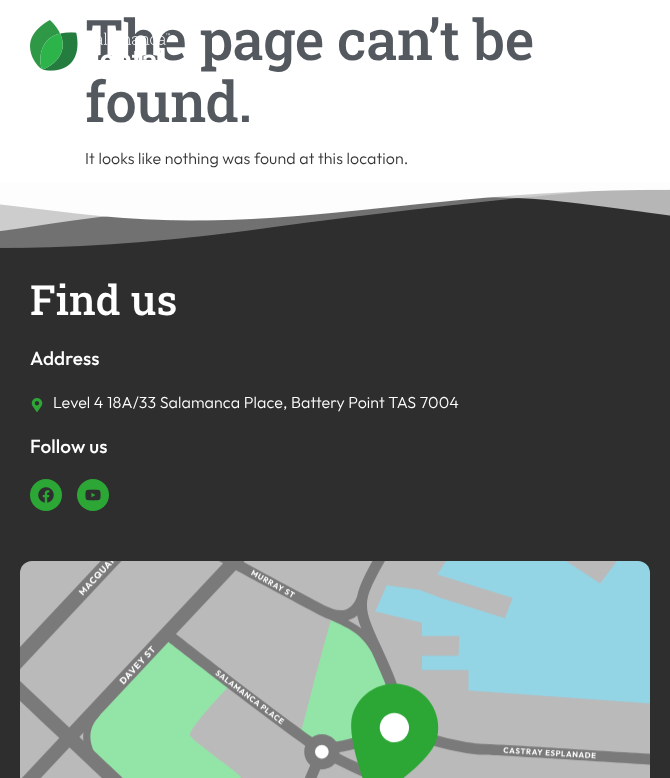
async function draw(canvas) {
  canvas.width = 670
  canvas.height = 778
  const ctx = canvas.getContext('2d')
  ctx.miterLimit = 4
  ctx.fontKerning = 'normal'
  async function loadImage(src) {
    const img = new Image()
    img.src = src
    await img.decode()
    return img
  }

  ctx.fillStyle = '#fff'
  ctx.fillRect(0, 0, 670, 778)
  ctx.letterSpacing = '-0.5px'
  ctx.font = '500 56px Roboto Slab'
  ctx.fillStyle = '#54595f'
  ctx.fillText('The page can’t be', 85, 60)
  ctx.fillText('found.', 85, 122)
  ctx.letterSpacing = '0.1px'
  ctx.font = '300 16px Outfit'
  ctx.fillStyle = '#333'
  ctx.fillText('It looks like nothing was found at this location.', 85, 164)
  ctx.drawImage(await loadImage('image0.png'), 30, 20, 140, 51)
  ctx.fillStyle = '#2e2e2e'
  ctx.fillRect(0, 189, 670, 589)
  ctx.drawImage(await loadImage('image1.png'), 0, 182, 670, 66)
  ctx.font = '500 41.5px Roboto Slab'
  ctx.fillStyle = '#fff'
  ctx.fillText('Find us', 30, 315)
  ctx.font = '500 19px Outfit'
  ctx.fillText('Address', 30, 365)
  ctx.drawImage(await loadImage('image2.png'), 31, 398, 12, 14)
  ctx.font = '300 16px Outfit'
  ctx.fillText('Level 4 18A/33 Salamanca Place, Battery Point TAS 7004', 53, 408)
  ctx.font = '500 19px Outfit'
  ctx.fillText('Follow us', 30, 453)
  ctx.fillStyle = '#2ca736'
  ctx.beginPath()
  ctx.arc(46, 495, 16, 0, 2 * Math.PI)
  ctx.fill()
  ctx.drawImage(await loadImage('image3.png'), 38, 487, 16, 16)
  ctx.beginPath()
  ctx.arc(93, 495, 16, 0, 2 * Math.PI)
  ctx.fill()
  ctx.drawImage(await loadImage('image4.png'), 85, 489, 16, 12)
  ctx.drawImage(await loadImage('image5.png'), 20, 561, 630, 217)
}

draw(document.querySelector('canvas'))
